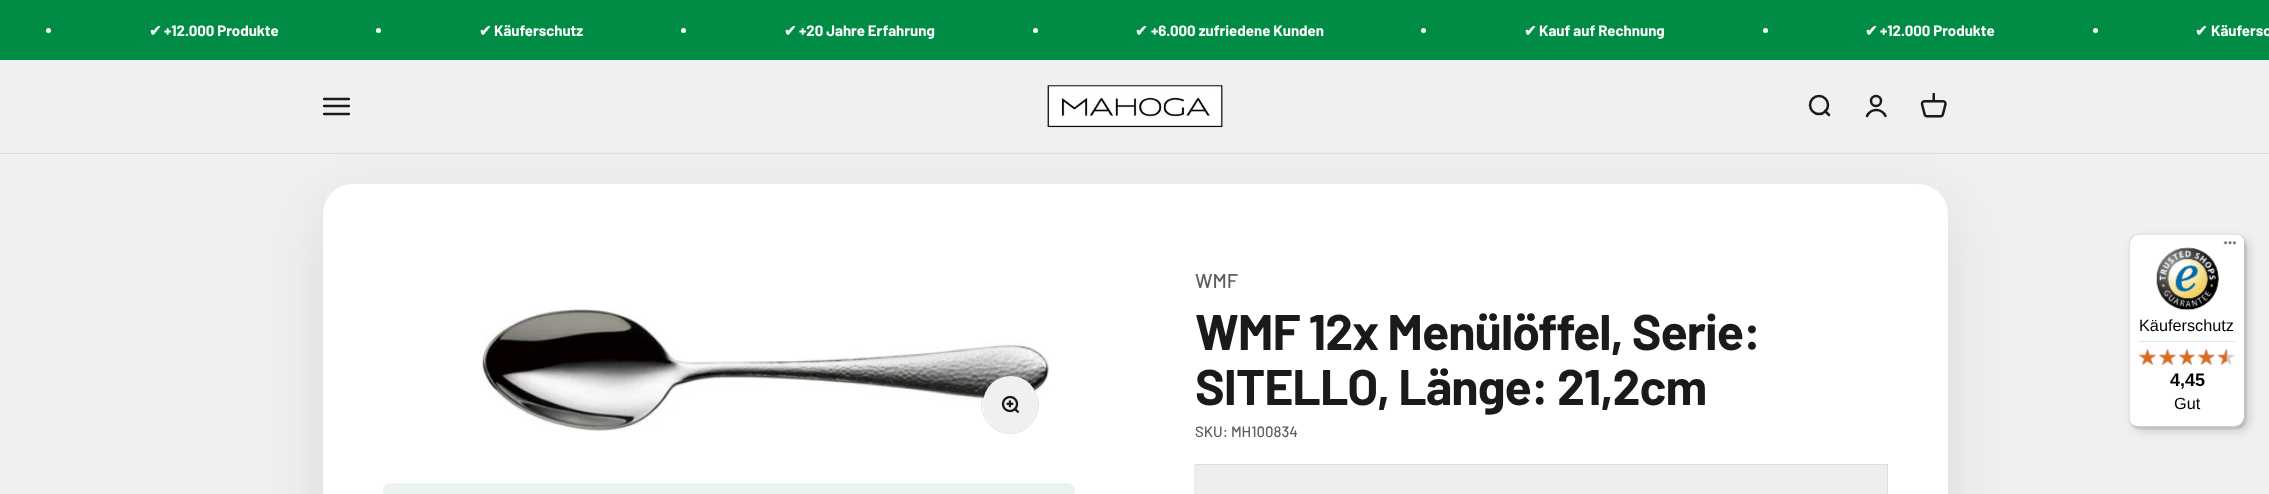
async function draw(canvas) {
  canvas.width = 2269
  canvas.height = 494
  const ctx = canvas.getContext('2d')
  ctx.miterLimit = 4
  ctx.fontKerning = 'normal'
  async function loadImage(src) {
    const img = new Image()
    img.src = src
    await img.decode()
    return img
  }

  ctx.fillStyle = '#f0f0f0'
  ctx.fillRect(0, 0, 2269, 494)
  ctx.fillStyle = '#008c44'
  ctx.fillRect(0, 0, 2269, 60)
  ctx.fillStyle = '#fff'
  ctx.beginPath()
  ctx.arc(48.5, 30.5, 2.5, 0, 2 * Math.PI)
  ctx.fill()
  ctx.font = 'bold 15px DejaVu Sans'
  ctx.fillText('✔', 149, 36)
  ctx.font = 'bold 15px Barlow'
  ctx.fillText('+12.000 Produkte', 164, 36)
  ctx.beginPath()
  ctx.arc(378.5, 30.5, 2.5, 0, 2 * Math.PI)
  ctx.fill()
  ctx.font = 'bold 15px DejaVu Sans'
  ctx.fillText('✔', 479, 36)
  ctx.font = 'bold 15px Barlow'
  ctx.fillText('Käuferschutz', 494, 36)
  ctx.beginPath()
  ctx.arc(683.5, 30.5, 2.5, 0, 2 * Math.PI)
  ctx.fill()
  ctx.font = 'bold 15px DejaVu Sans'
  ctx.fillText('✔', 784, 36)
  ctx.font = 'bold 15px Barlow'
  ctx.fillText('+20 Jahre Erfahrung', 799, 36)
  ctx.beginPath()
  ctx.arc(1035.5, 30.5, 2.5, 0, 2 * Math.PI)
  ctx.fill()
  ctx.font = 'bold 15px DejaVu Sans'
  ctx.fillText('✔', 1135, 36)
  ctx.font = 'bold 15px Barlow'
  ctx.fillText('+6.000 zufriedene Kunden', 1151, 36)
  ctx.beginPath()
  ctx.arc(1423.5, 30.5, 2.5, 0, 2 * Math.PI)
  ctx.fill()
  ctx.font = 'bold 15px DejaVu Sans'
  ctx.fillText('✔', 1524, 36)
  ctx.font = 'bold 15px Barlow'
  ctx.fillText('Kauf auf Rechnung', 1539, 36)
  ctx.beginPath()
  ctx.arc(1765.5, 30.5, 2.5, 0, 2 * Math.PI)
  ctx.fill()
  ctx.font = 'bold 15px DejaVu Sans'
  ctx.fillText('✔', 1865, 36)
  ctx.font = 'bold 15px Barlow'
  ctx.fillText('+12.000 Produkte', 1880, 36)
  ctx.beginPath()
  ctx.arc(2095.5, 30.5, 2.5, 0, 2 * Math.PI)
  ctx.fill()
  ctx.font = 'bold 15px DejaVu Sans'
  ctx.fillText('✔', 2195, 36)
  ctx.font = 'bold 15px Barlow'
  ctx.fillText('Käufersc', 2211, 36)
  ctx.fillStyle = '#1a1a1a1a'
  ctx.filter = 'blur(31px)'
  ctx.beginPath()
  ctx.roundRect(323, 206, 1625, 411, 30)
  ctx.fill()
  ctx.filter = 'none'
  ctx.fillStyle = '#ddd'
  ctx.fillRect(0, 153, 2269, 1)
  ctx.save()
  ctx.beginPath()
  ctx.rect(323, 93, 27, 27)
  ctx.clip()
  ctx.beginPath()
  ctx.moveTo(324, 99)
  ctx.lineTo(349, 99)
  ctx.moveTo(324, 106)
  ctx.lineTo(349, 106)
  ctx.moveTo(324, 114)
  ctx.lineTo(349, 114)
  ctx.strokeStyle = '#1a1a1a'
  ctx.lineWidth = 2.5
  ctx.lineCap = 'round'
  ctx.stroke()
  ctx.restore()
  ctx.drawImage(await loadImage('image0.png'), 1047, 85, 176, 43)
  ctx.beginPath()
  ctx.arc(1819, 105, 9, 0, 2 * Math.PI)
  ctx.strokeStyle = '#1a1a1a'
  ctx.lineWidth = 2.5
  ctx.stroke()
  ctx.beginPath()
  ctx.moveTo(1825, 111)
  ctx.lineTo(1829, 115)
  ctx.lineCap = 'round'
  ctx.lineJoin = 'round'
  ctx.stroke()
  ctx.beginPath()
  ctx.arc(1876, 101, 5, 0, 2 * Math.PI)
  ctx.stroke()
  ctx.beginPath()
  ctx.moveTo(1867, 116)
  ctx.bezierCurveTo(1871, 108, 1881.5, 108, 1885.5, 116)
  ctx.lineJoin = 'miter'
  ctx.stroke()
  ctx.drawImage(await loadImage('image1.png'), 1920, 93, 27, 25)
  ctx.fillStyle = '#fff'
  ctx.beginPath()
  ctx.roundRect(323, 184, 1625, 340, 30)
  ctx.fill()
  ctx.drawImage(await loadImage('image2.png'), 480, 307, 569, 124)
  ctx.beginPath()
  ctx.arc(1010, 405, 28.5, 0, 2 * Math.PI)
  ctx.strokeStyle = '#1a1a1a1f'
  ctx.lineWidth = 1
  ctx.stroke()
  ctx.fillStyle = '#f0f0f0'
  ctx.beginPath()
  ctx.roundRect(983, 376, 55, 57, 27.5)
  ctx.fill()
  ctx.drawImage(await loadImage('image3.png'), 1001, 396, 18, 17)
  ctx.fillStyle = '#eaf2ed'
  ctx.beginPath()
  ctx.roundRect(383, 483, 692, 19, 8)
  ctx.fill()
  ctx.font = '500 20px Barlow'
  ctx.fillStyle = '#5f5f5f'
  ctx.fillText('WMF', 1195, 288)
  ctx.letterSpacing = '-1px'
  ctx.font = 'bold 50px Barlow'
  ctx.fillStyle = '#1a1a1a'
  ctx.fillText('WMF 12x Menülöffel, Serie:', 1195, 350)
  ctx.fillText('SITELLO, Länge: 21,2cm', 1195, 405)
  ctx.letterSpacing = '0px'
  ctx.font = '500 15px Barlow'
  ctx.fillStyle = '#5f5f5f'
  ctx.fillText('SKU: MH100834', 1195, 437)
  ctx.fillStyle = '#eee'
  ctx.beginPath()
  ctx.rect(1195.5, 464.5, 692, 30)
  ctx.fill()
  ctx.strokeStyle = '#ddd'
  ctx.stroke()
  ctx.fillStyle = '#00000026'
  ctx.filter = 'blur(5px)'
  ctx.beginPath()
  ctx.roundRect(2133, 238, 116, 193, 10)
  ctx.fill()
  ctx.filter = 'none'
  ctx.filter = 'blur(1px)'
  ctx.beginPath()
  ctx.roundRect(2130, 235, 116, 194, 10)
  ctx.fill()
  ctx.filter = 'none'
  ctx.fillStyle = '#fff'
  ctx.beginPath()
  ctx.roundRect(2129, 234, 116, 194, 10)
  ctx.fill()
  ctx.fillStyle = '#0000001a'
  ctx.beginPath()
  ctx.moveTo(2140, 235)
  ctx.lineTo(2236, 235)
  ctx.bezierCurveTo(2238, 235, 2240, 235, 2241, 236)
  ctx.bezierCurveTo(2240, 235, 2237, 234, 2235, 234)
  ctx.lineTo(2139, 234)
  ctx.bezierCurveTo(2133, 234, 2129, 238, 2129, 244)
  ctx.lineTo(2129, 418)
  ctx.bezierCurveTo(2129, 421, 2130, 424, 2133, 426)
  ctx.bezierCurveTo(2131, 424, 2130, 421, 2130, 419)
  ctx.lineTo(2130, 245)
  ctx.bezierCurveTo(2130, 239, 2134, 235, 2140, 235)
  ctx.closePath()
  ctx.fill()
  ctx.fillStyle = '#00000033'
  ctx.beginPath()
  ctx.moveTo(2130, 422)
  ctx.bezierCurveTo(2132, 426, 2135, 428, 2139, 428)
  ctx.lineTo(2235, 428)
  ctx.bezierCurveTo(2241, 428, 2245, 424, 2245, 418)
  ctx.lineTo(2245, 244)
  ctx.bezierCurveTo(2245, 242, 2244, 240, 2243, 238)
  ctx.bezierCurveTo(2244, 239, 2244, 241, 2244, 242)
  ctx.lineTo(2244, 416)
  ctx.bezierCurveTo(2244, 422, 2239, 426, 2234, 426)
  ctx.lineTo(2138, 426)
  ctx.bezierCurveTo(2135, 426, 2132, 425, 2130, 422)
  ctx.closePath()
  ctx.fill()
  ctx.fillStyle = '#32323233'
  ctx.beginPath()
  ctx.moveTo(2131, 425)
  ctx.bezierCurveTo(2133, 427, 2136, 428, 2139, 428)
  ctx.lineTo(2235, 428)
  ctx.bezierCurveTo(2241, 428, 2245, 424, 2245, 418)
  ctx.lineTo(2245, 244)
  ctx.bezierCurveTo(2245, 242, 2244, 239, 2243, 238)
  ctx.bezierCurveTo(2244, 239, 2244, 241, 2244, 243)
  ctx.lineTo(2244, 417)
  ctx.bezierCurveTo(2244, 422, 2240, 427, 2234, 427)
  ctx.lineTo(2138, 427)
  ctx.bezierCurveTo(2135, 427, 2133, 426, 2131, 425)
  ctx.closePath()
  ctx.fill()
  ctx.fillStyle = '#ffffff4d'
  ctx.beginPath()
  ctx.moveTo(2130, 423)
  ctx.bezierCurveTo(2132, 426, 2135, 428, 2139, 428)
  ctx.lineTo(2235, 428)
  ctx.bezierCurveTo(2241, 428, 2245, 424, 2245, 418)
  ctx.lineTo(2245, 244)
  ctx.bezierCurveTo(2245, 241, 2244, 238, 2241, 236)
  ctx.bezierCurveTo(2243, 238, 2244, 241, 2244, 243)
  ctx.lineTo(2244, 417)
  ctx.bezierCurveTo(2244, 422, 2240, 427, 2234, 427)
  ctx.lineTo(2138, 427)
  ctx.bezierCurveTo(2135, 427, 2132, 425, 2130, 423)
  ctx.closePath()
  ctx.fill()
  ctx.drawImage(await loadImage('image4.png'), 2223, 241, 13, 4)
  ctx.drawImage(await loadImage('image5.png'), 2156, 247, 63, 64)
  ctx.font = '16.25px Liberation Sans'
  ctx.fillStyle = '#000'
  ctx.fillText('Käuferschutz', 2139, 331)
  ctx.fillStyle = '#e5e5e5'
  ctx.fillRect(2139, 341, 96, 1)
  ctx.drawImage(await loadImage('image11.png'), 2139, 349, 17, 16)
  ctx.drawImage(await loadImage('image6.png'), 2138, 348, 18, 17)
  ctx.drawImage(await loadImage('image12.png'), 2159, 349, 17, 16)
  ctx.drawImage(await loadImage('image7.png'), 2158, 348, 19, 17)
  ctx.drawImage(await loadImage('image13.png'), 2179, 349, 16, 16)
  ctx.drawImage(await loadImage('image8.png'), 2178, 348, 17, 17)
  ctx.drawImage(await loadImage('image14.png'), 2197, 349, 18, 16)
  ctx.drawImage(await loadImage('image9.png'), 2197, 348, 18, 17)
  ctx.drawImage(await loadImage('image15.png'), 2217, 349, 18, 16)
  ctx.drawImage(await loadImage('image10.png'), 2217, 348, 10, 17)
  ctx.font = 'bold 18px Liberation Sans'
  ctx.fillStyle = '#000'
  ctx.fillText('4,45', 2170, 386)
  ctx.font = '16.25px Liberation Sans'
  ctx.fillText('Gut', 2174, 409)
}

draw(document.querySelector('canvas'))
